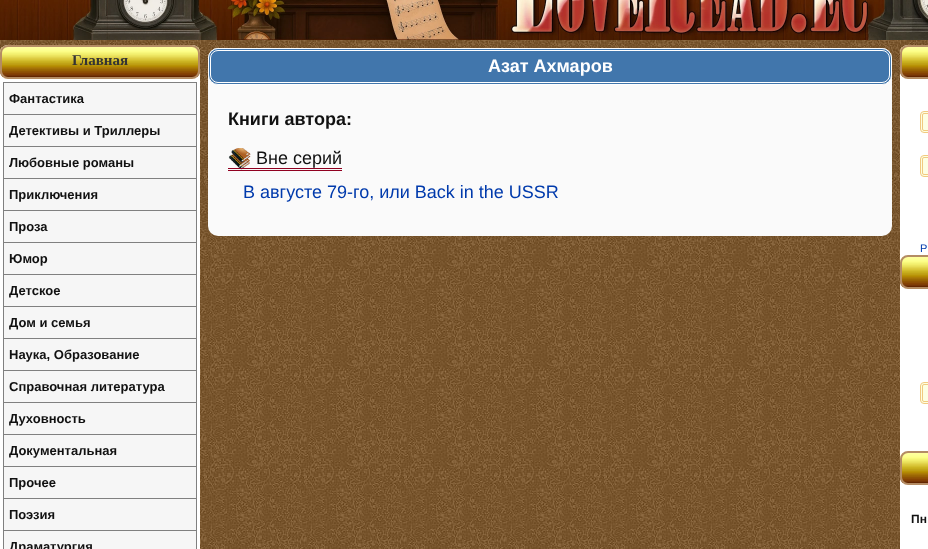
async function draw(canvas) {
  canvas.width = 928
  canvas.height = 549
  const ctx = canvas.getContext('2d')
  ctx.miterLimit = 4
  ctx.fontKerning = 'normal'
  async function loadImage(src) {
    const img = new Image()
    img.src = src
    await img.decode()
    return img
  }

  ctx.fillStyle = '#fff'
  ctx.fillRect(0, 0, 928, 549)
  ctx.drawImage(await loadImage('image0.png'), 0, 40, 928, 322)
  ctx.drawImage(await loadImage('image1.png'), 200, 362, 700, 187)
  ctx.drawImage(await loadImage('image2.png'), 0, 0, 50, 40)
  ctx.drawImage(await loadImage('image3.png'), 50, 0, 878, 40)
  ctx.beginPath()
  ctx.roundRect(0, 45, 200, 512, 8)
  ctx.fill()
  ctx.drawImage(await loadImage('image4.png'), 0, 47, 200, 30)
  ctx.beginPath()
  ctx.roundRect(1, 46, 198, 32, 7)
  ctx.strokeStyle = '#b48c64'
  ctx.lineWidth = 2
  ctx.stroke()
  ctx.font = 'bold 15px Liberation Serif'
  ctx.fillStyle = '#333'
  ctx.fillText('Главная', 72, 65)
  ctx.fillStyle = '#808080'
  ctx.fillRect(3, 82, 194, 1)
  ctx.fillRect(196, 82, 1, 32)
  ctx.fillRect(3, 82, 1, 32)
  ctx.fillStyle = '#f6f6f6'
  ctx.fillRect(4, 83, 192, 31)
  ctx.font = 'bold 13px Liberation Sans'
  ctx.fillStyle = '#111'
  ctx.fillText('Фантастика', 9, 103)
  ctx.fillStyle = '#808080'
  ctx.fillRect(3, 114, 194, 1)
  ctx.fillRect(196, 114, 1, 32)
  ctx.fillRect(3, 114, 1, 32)
  ctx.fillStyle = '#f6f6f6'
  ctx.fillRect(4, 115, 192, 31)
  ctx.fillStyle = '#111'
  ctx.fillText('Детективы и Триллеры', 9, 135)
  ctx.fillStyle = '#808080'
  ctx.fillRect(3, 146, 194, 1)
  ctx.fillRect(196, 146, 1, 32)
  ctx.fillRect(3, 146, 1, 32)
  ctx.fillStyle = '#f6f6f6'
  ctx.fillRect(4, 147, 192, 31)
  ctx.fillStyle = '#111'
  ctx.fillText('Любовные романы', 9, 167)
  ctx.fillStyle = '#808080'
  ctx.fillRect(3, 178, 194, 1)
  ctx.fillRect(196, 178, 1, 32)
  ctx.fillRect(3, 178, 1, 32)
  ctx.fillStyle = '#f6f6f6'
  ctx.fillRect(4, 179, 192, 31)
  ctx.fillStyle = '#111'
  ctx.fillText('Приключения', 9, 199)
  ctx.fillStyle = '#808080'
  ctx.fillRect(3, 210, 194, 1)
  ctx.fillRect(196, 210, 1, 32)
  ctx.fillRect(3, 210, 1, 32)
  ctx.fillStyle = '#f6f6f6'
  ctx.fillRect(4, 211, 192, 31)
  ctx.fillStyle = '#111'
  ctx.fillText('Проза', 9, 231)
  ctx.fillStyle = '#808080'
  ctx.fillRect(3, 242, 194, 1)
  ctx.fillRect(196, 242, 1, 32)
  ctx.fillRect(3, 242, 1, 32)
  ctx.fillStyle = '#f6f6f6'
  ctx.fillRect(4, 243, 192, 31)
  ctx.fillStyle = '#111'
  ctx.fillText('Юмор', 9, 263)
  ctx.fillStyle = '#808080'
  ctx.fillRect(3, 274, 194, 1)
  ctx.fillRect(196, 274, 1, 32)
  ctx.fillRect(3, 274, 1, 32)
  ctx.fillStyle = '#f6f6f6'
  ctx.fillRect(4, 275, 192, 31)
  ctx.fillStyle = '#111'
  ctx.fillText('Детское', 9, 295)
  ctx.fillStyle = '#808080'
  ctx.fillRect(3, 306, 194, 1)
  ctx.fillRect(196, 306, 1, 32)
  ctx.fillRect(3, 306, 1, 32)
  ctx.fillStyle = '#f6f6f6'
  ctx.fillRect(4, 307, 192, 31)
  ctx.fillStyle = '#111'
  ctx.fillText('Дом и семья', 9, 327)
  ctx.fillStyle = '#808080'
  ctx.fillRect(3, 338, 194, 1)
  ctx.fillRect(196, 338, 1, 32)
  ctx.fillRect(3, 338, 1, 32)
  ctx.fillStyle = '#f6f6f6'
  ctx.fillRect(4, 339, 192, 31)
  ctx.fillStyle = '#111'
  ctx.fillText('Наука, Образование', 9, 359)
  ctx.fillStyle = '#808080'
  ctx.fillRect(3, 370, 194, 1)
  ctx.fillRect(196, 370, 1, 32)
  ctx.fillRect(3, 370, 1, 32)
  ctx.fillStyle = '#f6f6f6'
  ctx.fillRect(4, 371, 192, 31)
  ctx.fillStyle = '#111'
  ctx.fillText('Справочная литература', 9, 391)
  ctx.fillStyle = '#808080'
  ctx.fillRect(3, 402, 194, 1)
  ctx.fillRect(196, 402, 1, 32)
  ctx.fillRect(3, 402, 1, 32)
  ctx.fillStyle = '#f6f6f6'
  ctx.fillRect(4, 403, 192, 31)
  ctx.fillStyle = '#111'
  ctx.fillText('Духовность', 9, 423)
  ctx.fillStyle = '#808080'
  ctx.fillRect(3, 434, 194, 1)
  ctx.fillRect(196, 434, 1, 32)
  ctx.fillRect(3, 434, 1, 32)
  ctx.fillStyle = '#f6f6f6'
  ctx.fillRect(4, 435, 192, 31)
  ctx.fillStyle = '#111'
  ctx.fillText('Документальная', 9, 455)
  ctx.fillStyle = '#808080'
  ctx.fillRect(3, 466, 194, 1)
  ctx.fillRect(196, 466, 1, 32)
  ctx.fillRect(3, 466, 1, 32)
  ctx.fillStyle = '#f6f6f6'
  ctx.fillRect(4, 467, 192, 31)
  ctx.fillStyle = '#111'
  ctx.fillText('Прочее', 9, 487)
  ctx.fillStyle = '#808080'
  ctx.fillRect(3, 498, 194, 1)
  ctx.fillRect(196, 498, 1, 32)
  ctx.fillRect(3, 498, 1, 32)
  ctx.fillStyle = '#f6f6f6'
  ctx.fillRect(4, 499, 192, 31)
  ctx.fillStyle = '#111'
  ctx.fillText('Поэзия', 9, 519)
  ctx.fillStyle = '#808080'
  ctx.fillRect(3, 530, 194, 1)
  ctx.fillRect(196, 530, 1, 19)
  ctx.fillRect(3, 530, 1, 19)
  ctx.fillStyle = '#f6f6f6'
  ctx.fillRect(4, 531, 192, 18)
  ctx.fillStyle = '#111'
  ctx.fillText('Драматургия', 9, 551)
  ctx.fillStyle = '#fafafa'
  ctx.beginPath()
  ctx.roundRect(208, 48, 684, 188, 10)
  ctx.fill()
  ctx.fillStyle = '#4176ac'
  ctx.beginPath()
  ctx.roundRect(208.5, 48.5, 683, 36, 9.5)
  ctx.fill()
  ctx.strokeStyle = '#fff'
  ctx.lineWidth = 1
  ctx.stroke()
  ctx.beginPath()
  ctx.roundRect(210.5, 50.5, 679, 32, 7.5)
  ctx.stroke()
  ctx.font = 'bold 18px Liberation Sans'
  ctx.fillStyle = '#fff'
  ctx.fillText('Азат Ахмаров', 488, 72)
  ctx.fillStyle = '#111'
  ctx.fillText('Книги автора:', 228, 125)
  ctx.drawImage(await loadImage('image5.png'), 228, 148, 23, 22)
  ctx.font = '18px Liberation Sans'
  ctx.fillText('Вне серий', 256, 164)
  ctx.fillStyle = '#900020'
  ctx.fillRect(228, 168, 114, 1)
  ctx.fillRect(228, 170, 114, 1)
  ctx.fillStyle = '#003aac'
  ctx.fillText('В августе 79-го, или Back in the USSR', 243, 198)
  ctx.fillStyle = '#fff'
  ctx.beginPath()
  ctx.roundRect(900, 45, 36, 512, 8)
  ctx.fill()
  ctx.drawImage(await loadImage('image6.png'), 900, 47, 28, 30)
  ctx.beginPath()
  ctx.roundRect(901, 46, 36, 32, 7)
  ctx.strokeStyle = '#b48c64'
  ctx.lineWidth = 2
  ctx.stroke()
  ctx.fillStyle = '#fdffe2'
  ctx.beginPath()
  ctx.roundRect(920.5, 111.5, 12, 21, 3.5)
  ctx.fill()
  ctx.strokeStyle = '#f1ca7f'
  ctx.lineWidth = 1
  ctx.stroke()
  ctx.beginPath()
  ctx.roundRect(922.5, 113.5, 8, 17, 1.5)
  ctx.stroke()
  ctx.beginPath()
  ctx.roundRect(920.5, 155.5, 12, 21, 3.5)
  ctx.fill()
  ctx.stroke()
  ctx.beginPath()
  ctx.roundRect(922.5, 157.5, 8, 17, 1.5)
  ctx.stroke()
  ctx.font = '11px Liberation Sans'
  ctx.fillStyle = '#003aac'
  ctx.fillText('Р', 920, 252)
  ctx.drawImage(await loadImage('image7.png'), 900, 257, 28, 30)
  ctx.beginPath()
  ctx.roundRect(901, 256, 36, 32, 7)
  ctx.strokeStyle = '#b48c64'
  ctx.lineWidth = 2
  ctx.stroke()
  ctx.fillStyle = '#fdffe2'
  ctx.beginPath()
  ctx.roundRect(920.5, 382.5, 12, 21, 3.5)
  ctx.fill()
  ctx.strokeStyle = '#f1ca7f'
  ctx.lineWidth = 1
  ctx.stroke()
  ctx.beginPath()
  ctx.roundRect(922.5, 384.5, 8, 17, 1.5)
  ctx.stroke()
  ctx.drawImage(await loadImage('image7.png'), 900, 453, 28, 30)
  ctx.beginPath()
  ctx.roundRect(901, 452, 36, 32, 7)
  ctx.strokeStyle = '#b48c64'
  ctx.lineWidth = 2
  ctx.stroke()
  ctx.font = 'bold 12px Liberation Sans'
  ctx.fillStyle = '#111'
  ctx.fillText('Пн', 911, 523)
}

draw(document.querySelector('canvas'))
